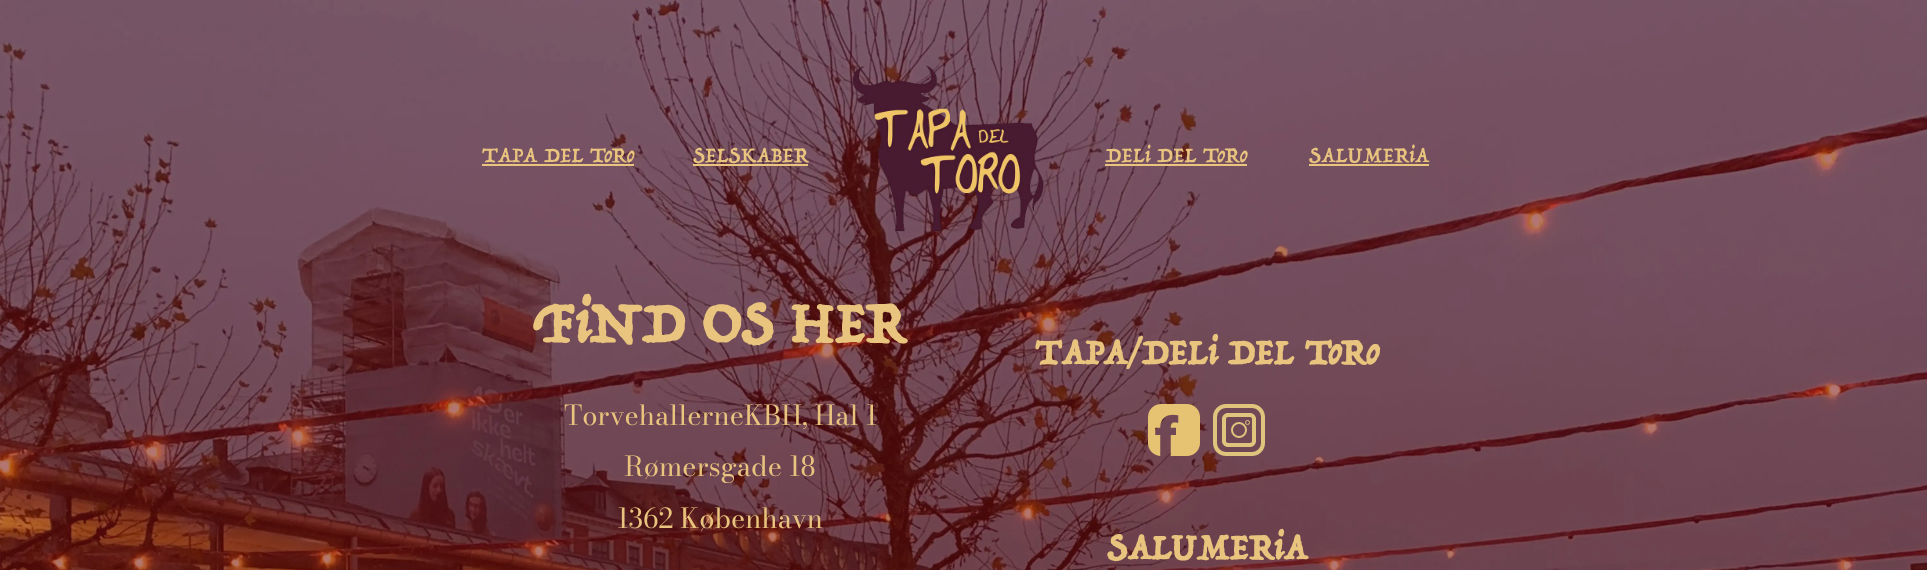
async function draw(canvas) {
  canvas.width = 1927
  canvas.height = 570
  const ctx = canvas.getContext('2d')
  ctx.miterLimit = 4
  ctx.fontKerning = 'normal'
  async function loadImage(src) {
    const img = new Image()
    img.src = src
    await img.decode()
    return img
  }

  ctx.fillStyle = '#fff'
  ctx.fillRect(0, 0, 1927, 570)
  ctx.drawImage(await loadImage('image0.png'), 0, 0, 1927, 570)
  ctx.font = '24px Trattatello'
  ctx.fillStyle = '#e9c47f'
  ctx.fillText('TAPA DEL ToRo', 482, 162)
  ctx.fillRect(482, 164, 152, 2)
  ctx.fillText('SELSKABER', 693, 162)
  ctx.fillRect(693, 164, 115, 2)
  ctx.drawImage(await loadImage('image1.png'), 852, 65, 192, 167)
  ctx.fillText('DELi DEL ToRo', 1105, 162)
  ctx.fillRect(1105, 164, 142, 2)
  ctx.fillText('SALUMERiA', 1309, 162)
  ctx.fillRect(1309, 164, 120, 2)
  ctx.font = 'bold 64px Trattatello'
  ctx.fillText('FiND OS HER', 536, 342)
  ctx.font = '27.25px Bodoni Moda'
  ctx.fillText('TorvehallerneKBH, Hal 1', 564, 425)
  ctx.fillText('Rømersgade 18', 624, 476)
  ctx.fillText('1362 København', 617, 528)
  ctx.font = 'bold 40px Trattatello'
  ctx.fillText('TAPA/DELi DEL ToRo', 1035, 364)
  ctx.drawImage(await loadImage('image2.png'), 1148, 404, 52, 52)
  ctx.drawImage(await loadImage('image3.png'), 1213, 404, 52, 52)
  ctx.fillText('SALUMERiA', 1107, 559)
}

draw(document.querySelector('canvas'))
